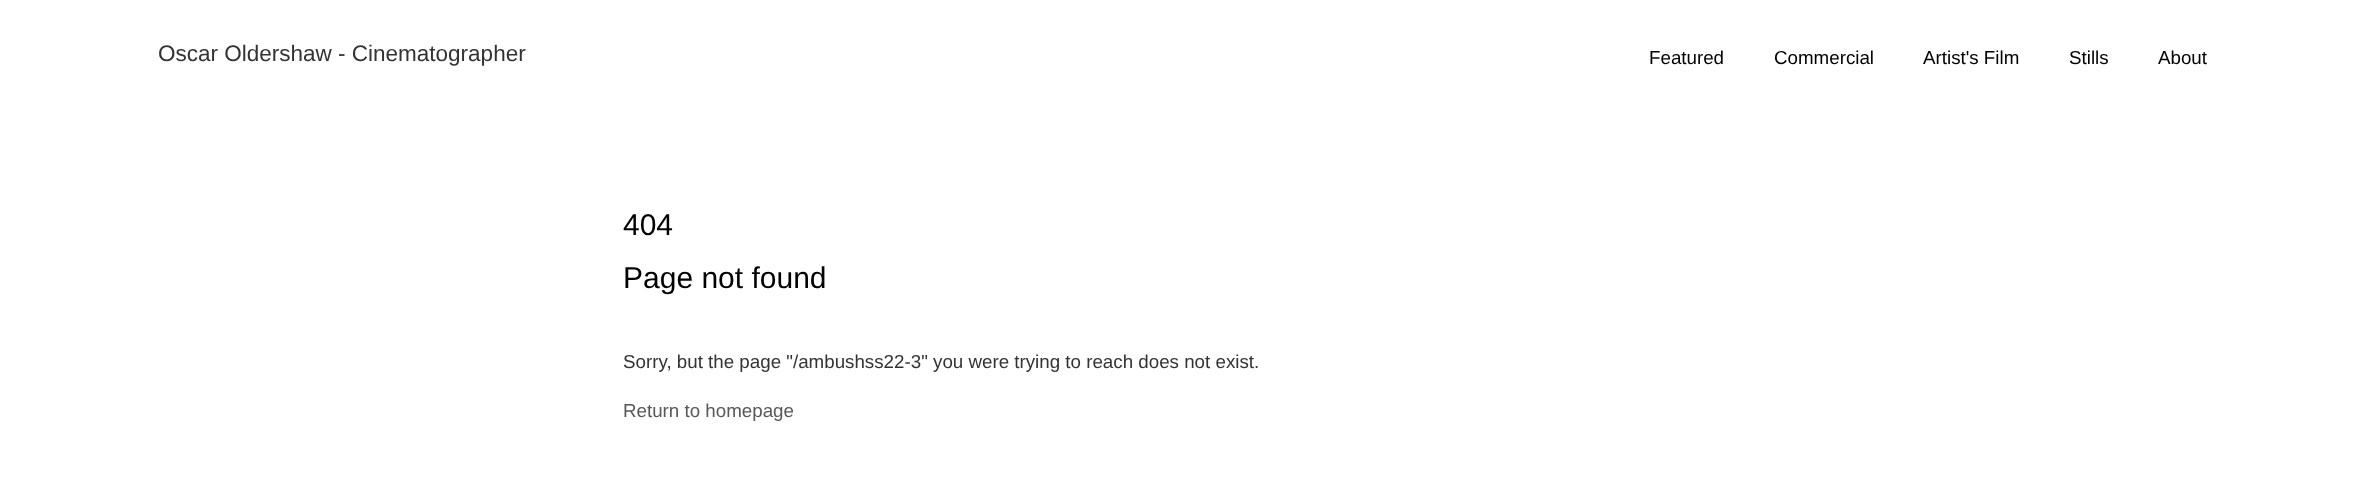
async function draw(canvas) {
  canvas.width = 2364
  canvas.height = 484
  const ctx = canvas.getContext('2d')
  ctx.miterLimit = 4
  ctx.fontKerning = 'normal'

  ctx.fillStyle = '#fff'
  ctx.fillRect(0, 0, 2364, 484)
  ctx.font = '22.5px Liberation Sans'
  ctx.fillStyle = '#333'
  ctx.fillText('Oscar Oldershaw - Cinematographer', 158, 61)
  ctx.font = '18.75px Liberation Sans'
  ctx.fillStyle = '#000'
  ctx.fillText('Featured', 1649, 64)
  ctx.fillText('Commercial', 1774, 64)
  ctx.fillText('Artist\'s Film', 1923, 64)
  ctx.fillText('Stills', 2069, 64)
  ctx.fillText('About', 2158, 64)
  ctx.font = '30px Liberation Sans'
  ctx.fillText('404', 623, 235)
  ctx.fillText('Page not found', 623, 288)
  ctx.font = '18.75px Liberation Sans'
  ctx.fillStyle = '#333'
  ctx.fillText('Sorry, but the page "/ambushss22-3" you were trying to reach does not exist.', 623, 368)
  ctx.fillStyle = '#585858'
  ctx.fillText('Return to homepage', 623, 417)
}

draw(document.querySelector('canvas'))
